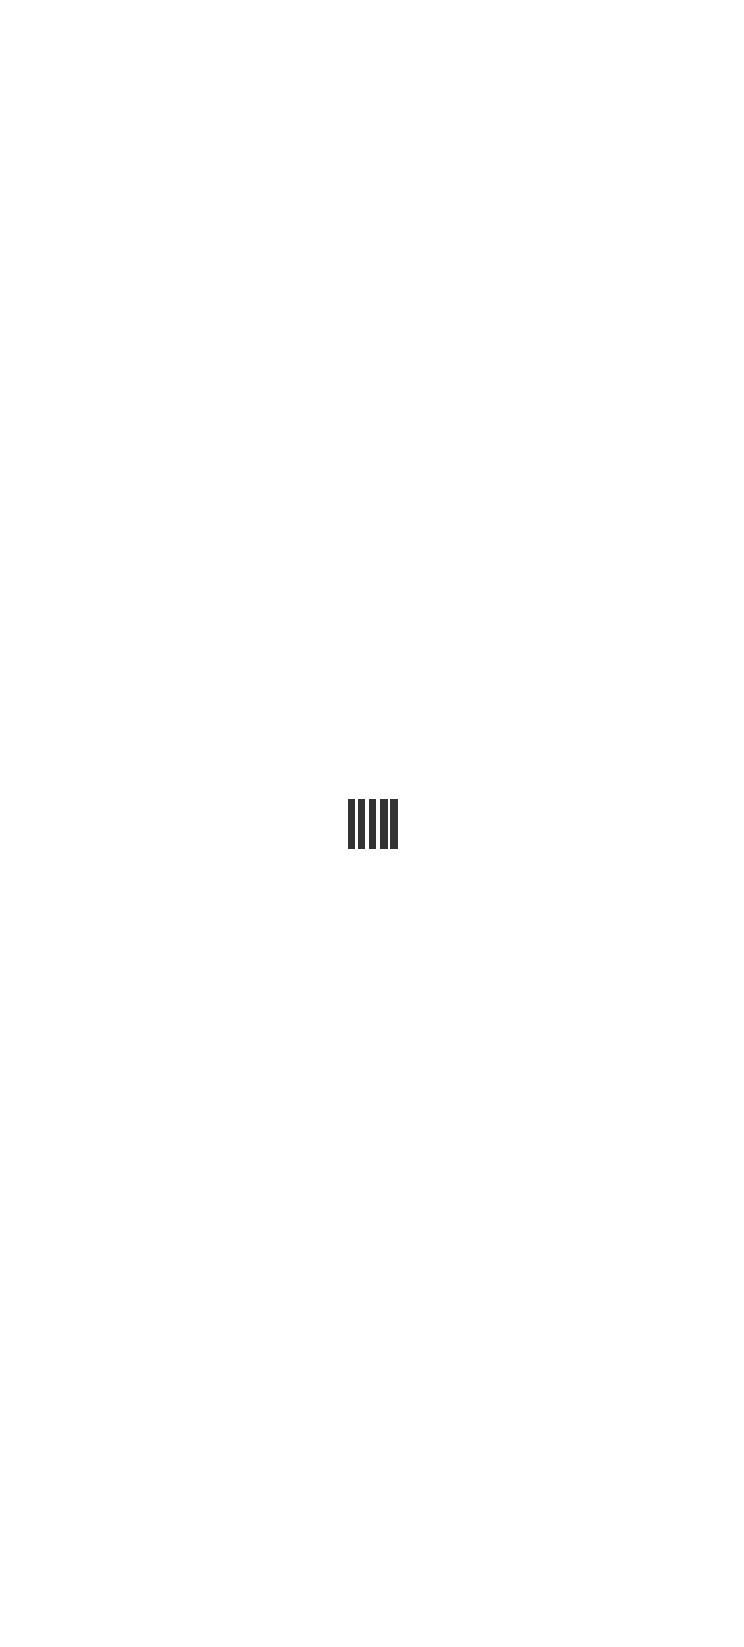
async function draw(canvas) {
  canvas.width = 744
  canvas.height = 1647
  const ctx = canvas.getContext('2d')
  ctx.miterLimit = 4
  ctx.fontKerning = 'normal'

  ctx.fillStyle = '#fff'
  ctx.fillRect(0, 0, 744, 1647)
  ctx.fillStyle = '#333'
  ctx.fillRect(348, 799, 7, 50)
  ctx.fillRect(358, 799, 7, 50)
  ctx.fillRect(369, 799, 7, 50)
  ctx.fillRect(380, 799, 8, 50)
  ctx.fillRect(390, 799, 8, 50)
}

draw(document.querySelector('canvas'))
